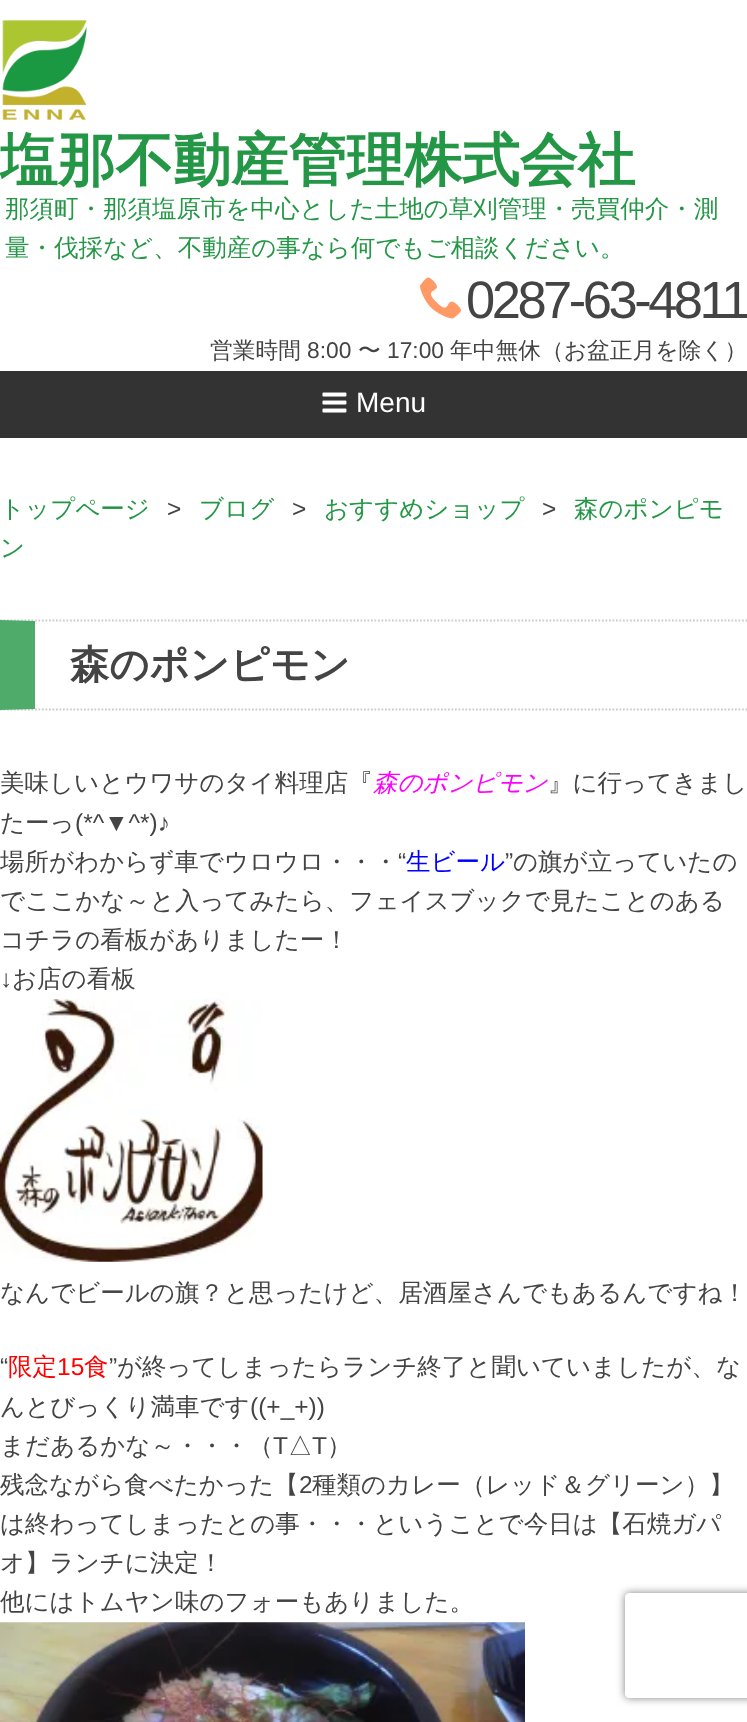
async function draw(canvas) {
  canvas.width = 747
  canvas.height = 1722
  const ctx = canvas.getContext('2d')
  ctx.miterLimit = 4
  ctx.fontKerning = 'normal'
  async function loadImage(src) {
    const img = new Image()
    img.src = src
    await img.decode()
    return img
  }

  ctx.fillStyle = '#fff'
  ctx.fillRect(0, 0, 747, 1722)
  ctx.drawImage(await loadImage('image0.png'), 2, 20, 85, 100)
  ctx.font = 'bold 57.75px WenQuanYi Zen Hei'
  ctx.fillStyle = '#249746'
  ctx.fillText('塩那不動産管理株式会社', 0, 180)
  ctx.font = '500 24.5px WenQuanYi Zen Hei'
  ctx.fillText('那須町・那須塩原市を中心とした土地の草刈管理・売買仲介・測', 5, 217)
  ctx.fillText('量・伐採など、不動産の事なら何でもご相談ください。', 5, 256)
  ctx.drawImage(await loadImage('image1.png'), 420, 277, 41, 42)
  ctx.letterSpacing = '-3.5px'
  ctx.font = '52.5px Liberation Sans'
  ctx.fillStyle = '#444'
  ctx.fillText('0287-63-4811', 466, 318)
  ctx.letterSpacing = '0px'
  ctx.font = '500 22.75px WenQuanYi Zen Hei'
  ctx.fillText('営業時間', 210, 358)
  ctx.font = '22.75px Liberation Sans'
  ctx.fillText('8:00', 307, 358)
  ctx.font = '500 22.75px WenQuanYi Zen Hei'
  ctx.fillText('〜', 358, 358)
  ctx.font = '22.75px Liberation Sans'
  ctx.fillText('17:00', 387, 358)
  ctx.font = '500 22.75px WenQuanYi Zen Hei'
  ctx.fillText('年中無休（お盆正月を除く）', 450, 358)
  ctx.fillStyle = '#333'
  ctx.fillRect(0, 371, 747, 67)
  ctx.drawImage(await loadImage('image2.png'), 322, 392, 25, 21)
  ctx.font = '28px Liberation Sans'
  ctx.fillStyle = '#fff'
  ctx.fillText('Menu', 356, 412)
  ctx.font = '500 24.5px WenQuanYi Zen Hei'
  ctx.fillStyle = '#249746'
  ctx.fillText('トップページ', 0, 517)
  ctx.font = '24.5px Liberation Sans'
  ctx.fillStyle = '#444'
  ctx.fillText('>', 167, 517)
  ctx.font = '500 24.5px WenQuanYi Zen Hei'
  ctx.fillStyle = '#249746'
  ctx.fillText('ブログ', 199, 517)
  ctx.font = '24.5px Liberation Sans'
  ctx.fillStyle = '#444'
  ctx.fillText('>', 292, 517)
  ctx.font = '500 24.5px WenQuanYi Zen Hei'
  ctx.fillStyle = '#249746'
  ctx.fillText('おすすめショップ', 324, 517)
  ctx.font = '24.5px Liberation Sans'
  ctx.fillStyle = '#444'
  ctx.fillText('>', 542, 517)
  ctx.font = '500 24.5px WenQuanYi Zen Hei'
  ctx.fillStyle = '#249746'
  ctx.fillText('森のポンピモ', 574, 517)
  ctx.fillText('ン', 0, 556)
  ctx.beginPath()
  ctx.moveTo(0, 620.5)
  ctx.lineTo(747, 620.5)
  ctx.strokeStyle = '#ccc'
  ctx.lineWidth = 1.8
  ctx.setLineDash([1.75, 1.75])
  ctx.stroke()
  ctx.beginPath()
  ctx.moveTo(0, 709.5)
  ctx.lineTo(747, 709.5)
  ctx.stroke()
  ctx.fillStyle = '#4fab6a'
  ctx.beginPath()
  ctx.moveTo(0, 710)
  ctx.lineTo(0, 620)
  ctx.lineTo(35, 621)
  ctx.lineTo(35, 709)
  ctx.closePath()
  ctx.fill()
  ctx.font = 'bold 39.25px WenQuanYi Zen Hei'
  ctx.fillStyle = '#444'
  ctx.fillText('森のポンピモン', 70, 678)
  ctx.font = '500 24.5px WenQuanYi Zen Hei'
  ctx.fillText('美味しいとウワサのタイ料理店『', 0, 791)
  ctx.font = 'italic 500 24.5px WenQuanYi Zen Hei'
  ctx.fillStyle = '#f0f'
  ctx.fillText('森のポンピモン', 373, 791)
  ctx.font = '500 24.5px WenQuanYi Zen Hei'
  ctx.fillStyle = '#444'
  ctx.fillText('』に行ってきまし', 548, 791)
  ctx.fillText('たーっ', 0, 831)
  ctx.font = '24.5px Liberation Sans'
  ctx.fillText('(*^▼^*)♪', 75, 831)
  ctx.font = '500 24.5px WenQuanYi Zen Hei'
  ctx.fillText('場所がわからず車でウロウロ・・・', 0, 870)
  ctx.font = '24.5px Liberation Sans'
  ctx.fillText('“', 398, 870)
  ctx.font = '500 24.5px WenQuanYi Zen Hei'
  ctx.fillStyle = '#00f'
  ctx.fillText('生ビール', 406, 870)
  ctx.font = '24.5px Liberation Sans'
  ctx.fillStyle = '#444'
  ctx.fillText('”', 505, 870)
  ctx.font = '500 24.5px WenQuanYi Zen Hei'
  ctx.fillText('の旗が立っていたの', 513, 870)
  ctx.fillText('でここかな～と入ってみたら、フェイスブックで見たことのある', 0, 909)
  ctx.fillText('コチラの看板がありましたー！', 0, 948)
  ctx.font = '24.5px Liberation Sans'
  ctx.fillText('↓', 0, 987)
  ctx.font = '500 24.5px WenQuanYi Zen Hei'
  ctx.fillText('お店の看板', 12, 987)
  ctx.drawImage(await loadImage('image3.png'), 0, 999, 263, 263)
  ctx.fillText('なんでビールの旗？と思ったけど、居酒屋さんでもあるんですね！', 0, 1301)
  ctx.font = '24.5px Liberation Sans'
  ctx.fillText('“', 0, 1375)
  ctx.font = '500 24.5px WenQuanYi Zen Hei'
  ctx.fillStyle = '#f00'
  ctx.fillText('限定', 8, 1375)
  ctx.font = '24.5px Liberation Sans'
  ctx.fillText('15', 57, 1375)
  ctx.font = '500 24.5px WenQuanYi Zen Hei'
  ctx.fillText('食', 84, 1375)
  ctx.font = '24.5px Liberation Sans'
  ctx.fillStyle = '#444'
  ctx.fillText('”', 109, 1375)
  ctx.font = '500 24.5px WenQuanYi Zen Hei'
  ctx.fillText('が終ってしまったらランチ終了と聞いていましたが、な', 117, 1375)
  ctx.fillText('んとびっくり満車です', 0, 1415)
  ctx.font = '24.5px Liberation Sans'
  ctx.fillText('((+_+))', 250, 1415)
  ctx.font = '500 24.5px WenQuanYi Zen Hei'
  ctx.fillText('まだあるかな～・・・（', 0, 1454)
  ctx.font = '24.5px Liberation Sans'
  ctx.fillText('T', 273, 1454)
  ctx.font = '500 24.5px WenQuanYi Zen Hei'
  ctx.fillText('△', 288, 1454)
  ctx.font = '24.5px Liberation Sans'
  ctx.fillText('T', 312, 1454)
  ctx.font = '500 24.5px WenQuanYi Zen Hei'
  ctx.fillText('）', 327, 1454)
  ctx.fillText('残念ながら食べたかった【', 0, 1493)
  ctx.font = '24.5px Liberation Sans'
  ctx.fillText('2', 299, 1493)
  ctx.font = '500 24.5px WenQuanYi Zen Hei'
  ctx.fillText('種類のカレー（レッド＆グリーン）】', 312, 1493)
  ctx.fillText('は終わってしまったとの事・・・ということで今日は【石焼ガパ', 0, 1532)
  ctx.fillText('オ】ランチに決定！', 0, 1571)
  ctx.fillText('他にはトムヤン味のフォーもありました。', 0, 1610)
  ctx.drawImage(await loadImage('image4.png'), 0, 1622, 525, 100)
  ctx.save()
  ctx.beginPath()
  ctx.moveTo(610, 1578)
  ctx.lineTo(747, 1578)
  ctx.lineTo(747, 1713)
  ctx.lineTo(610, 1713)
  ctx.closePath()
  ctx.moveTo(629, 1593)
  ctx.lineTo(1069, 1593)
  ctx.bezierCurveTo(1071, 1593, 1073, 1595, 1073, 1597)
  ctx.lineTo(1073, 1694)
  ctx.bezierCurveTo(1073, 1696, 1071, 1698, 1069, 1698)
  ctx.lineTo(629, 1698)
  ctx.bezierCurveTo(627, 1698, 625, 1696, 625, 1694)
  ctx.lineTo(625, 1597)
  ctx.bezierCurveTo(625, 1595, 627, 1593, 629, 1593)
  ctx.closePath()
  ctx.clip('evenodd')
  ctx.fillStyle = '#808080'
  ctx.filter = 'blur(4.5px)'
  ctx.beginPath()
  ctx.roundRect(625, 1593, 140, 105, 4)
  ctx.fill()
  ctx.filter = 'none'
  ctx.restore()
}

draw(document.querySelector('canvas'))
